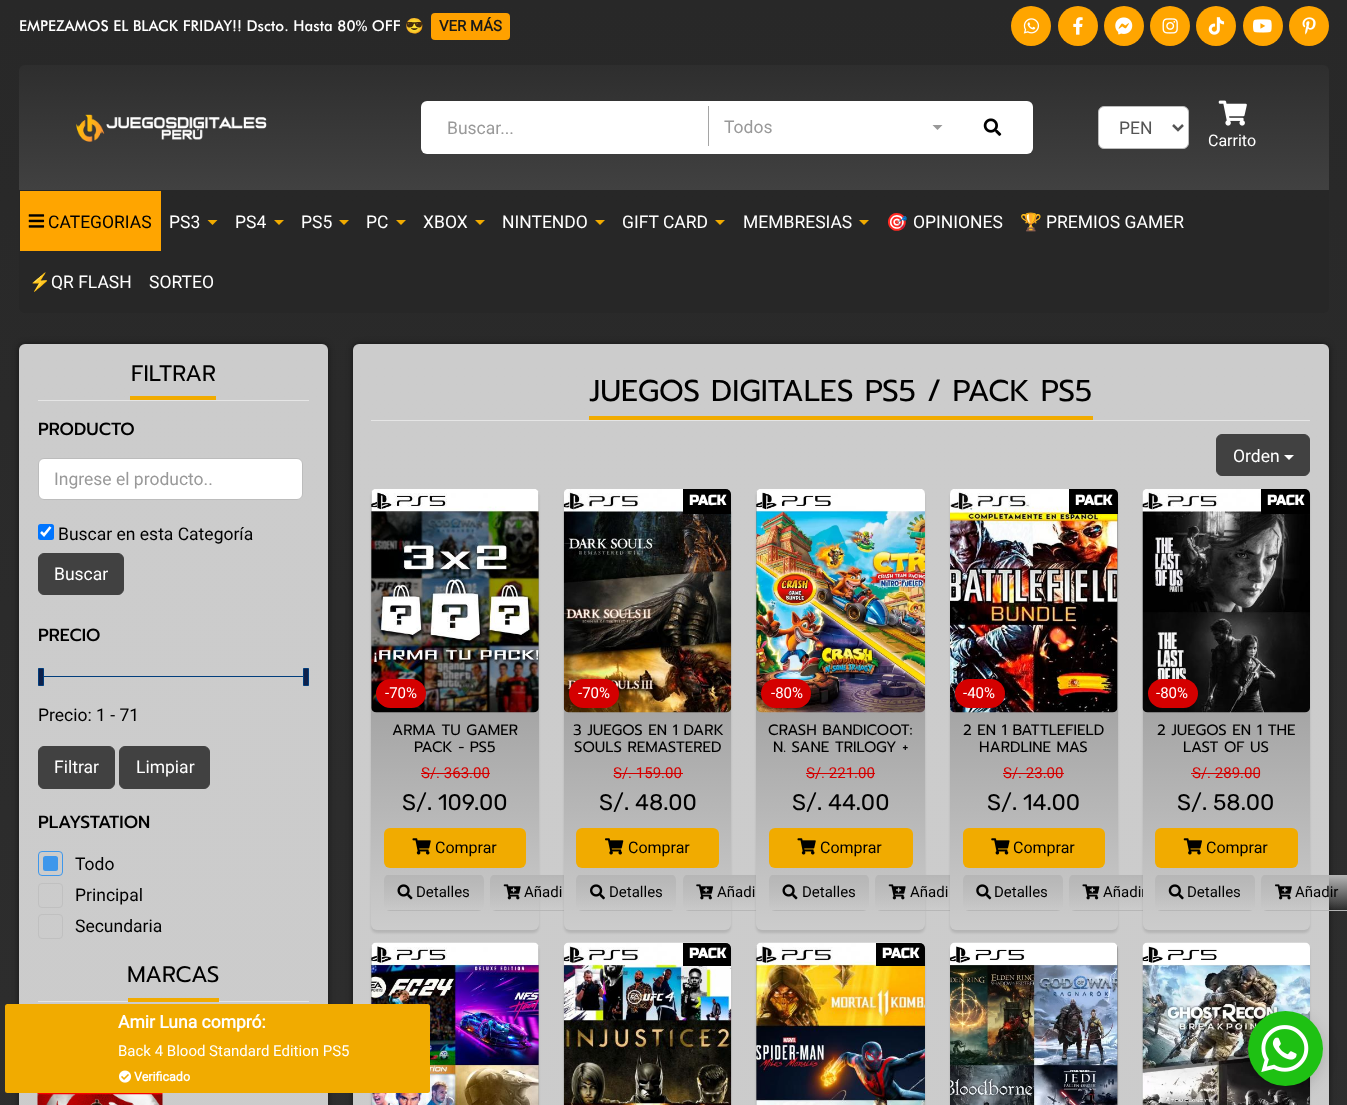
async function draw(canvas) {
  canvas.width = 1347
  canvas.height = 1105
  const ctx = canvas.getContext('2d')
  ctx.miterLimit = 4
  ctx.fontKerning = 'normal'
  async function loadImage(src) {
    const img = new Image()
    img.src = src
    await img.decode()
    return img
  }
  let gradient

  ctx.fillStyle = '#fff'
  ctx.fillRect(0, 0, 1347, 1105)
  gradient = ctx.createLinearGradient(674, 0, 674, 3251)
  gradient.addColorStop(0, '#282828')
  gradient.addColorStop(1, '#383838')
  ctx.fillStyle = gradient
  ctx.fillRect(0, 0, 1347, 1105)
  ctx.font = '500 15px Futura'
  ctx.fillStyle = '#fff'
  ctx.fillText('EMPEZAMOS EL BLACK FRIDAY!! Dscto. Hasta 80% OFF', 19, 31)
  ctx.font = '15px Noto Color Emoji'
  ctx.fillText('😎', 405, 31)
  ctx.fillStyle = '#ffa100'
  ctx.beginPath()
  ctx.roundRect(431, 13, 79, 27, 4)
  ctx.fill()
  ctx.font = 'bold 15px Roboto'
  ctx.fillStyle = '#191919'
  ctx.fillText('VER MÁS', 439, 31)
  ctx.fillStyle = '#ffa500'
  ctx.beginPath()
  ctx.arc(1031, 26, 20, 0, 2 * Math.PI)
  ctx.fill()
  ctx.drawImage(await loadImage('image0.png'), 1023, 18, 17, 16)
  ctx.beginPath()
  ctx.arc(1078, 26, 20, 0, 2 * Math.PI)
  ctx.fill()
  ctx.drawImage(await loadImage('image1.png'), 1073, 17, 10, 18)
  ctx.beginPath()
  ctx.arc(1124, 26, 20, 0, 2 * Math.PI)
  ctx.fill()
  ctx.drawImage(await loadImage('image2.png'), 1115, 17, 18, 18)
  ctx.beginPath()
  ctx.arc(1170, 26, 20, 0, 2 * Math.PI)
  ctx.fill()
  ctx.drawImage(await loadImage('image3.png'), 1162, 18, 16, 16)
  ctx.beginPath()
  ctx.arc(1216, 26, 20, 0, 2 * Math.PI)
  ctx.fill()
  ctx.drawImage(await loadImage('image4.png'), 1208, 17, 17, 18)
  ctx.beginPath()
  ctx.arc(1263, 26, 20, 0, 2 * Math.PI)
  ctx.fill()
  ctx.drawImage(await loadImage('image5.png'), 1253, 19, 19, 14)
  ctx.beginPath()
  ctx.arc(1309, 26, 20, 0, 2 * Math.PI)
  ctx.fill()
  ctx.drawImage(await loadImage('image6.png'), 1302, 17, 14, 18)
  gradient = ctx.createLinearGradient(674, 65, 674, 190)
  gradient.addColorStop(0, '#2e2e2e')
  gradient.addColorStop(1, '#414141')
  ctx.fillStyle = gradient
  ctx.beginPath()
  ctx.roundRect(19, 65, 1310, 125, [6, 6, 0, 0])
  ctx.fill()
  ctx.drawImage(await loadImage('image7.png'), 76, 114, 191, 28)
  ctx.fillStyle = '#fff'
  ctx.beginPath()
  ctx.roundRect(421, 101, 612, 53, 6)
  ctx.fill()
  ctx.font = '17.5px Roboto'
  ctx.fillStyle = '#999'
  ctx.fillText('Buscar...', 447, 134)
  ctx.fillStyle = '#a5a5a5'
  ctx.fillRect(708, 106, 1, 40)
  ctx.fillStyle = '#999'
  ctx.fillText('Todos', 724, 133)
  ctx.beginPath()
  ctx.moveTo(932.5, 125)
  ctx.lineTo(942.5, 125)
  ctx.lineTo(937.5, 130)
  ctx.closePath()
  ctx.fill()
  ctx.drawImage(await loadImage('image8.png'), 983, 118, 19, 18)
  ctx.fillStyle = '#fff'
  ctx.beginPath()
  ctx.roundRect(1098.5, 106.5, 90, 42, 5.5)
  ctx.fill()
  ctx.strokeStyle = '#bcbcbc'
  ctx.stroke()
  ctx.beginPath()
  ctx.moveTo(1173, 125)
  ctx.lineTo(1178, 130)
  ctx.lineTo(1183, 125)
  ctx.strokeStyle = '#555'
  ctx.lineWidth = 2.5
  ctx.stroke()
  ctx.fillStyle = '#555'
  ctx.fillText('PEN', 1119, 134)
  ctx.drawImage(await loadImage('image9.png'), 1218, 100, 29, 26)
  ctx.font = '16px Roboto'
  ctx.fillStyle = '#fff'
  ctx.fillText('Carrito', 1208, 146)
  ctx.fillStyle = '#262626c7'
  ctx.beginPath()
  ctx.roundRect(19, 190, 1310, 123, [0, 0, 6, 6])
  ctx.fill()
  ctx.fillStyle = '#ffa500'
  ctx.fillRect(20, 191, 141, 60)
  ctx.drawImage(await loadImage('image10.png'), 28, 214, 17, 14)
  ctx.font = '17.5px Roboto'
  ctx.fillStyle = '#000'
  ctx.fillText('CATEGORIAS', 48, 228)
  ctx.fillStyle = '#fff'
  ctx.fillText('PS3', 169, 228)
  ctx.fillStyle = '#f1ab00'
  ctx.beginPath()
  ctx.moveTo(207.5, 220)
  ctx.lineTo(217.5, 220)
  ctx.lineTo(212.5, 225)
  ctx.closePath()
  ctx.fill()
  ctx.fillStyle = '#fff'
  ctx.fillText('PS4', 235, 228)
  ctx.fillStyle = '#f1ab00'
  ctx.beginPath()
  ctx.moveTo(274, 220)
  ctx.lineTo(284, 220)
  ctx.lineTo(279, 225)
  ctx.closePath()
  ctx.fill()
  ctx.fillStyle = '#fff'
  ctx.fillText('PS5', 301, 228)
  ctx.fillStyle = '#f1ab00'
  ctx.beginPath()
  ctx.moveTo(339, 220)
  ctx.lineTo(349, 220)
  ctx.lineTo(344, 225)
  ctx.closePath()
  ctx.fill()
  ctx.fillStyle = '#fff'
  ctx.fillText('PC', 366, 228)
  ctx.fillStyle = '#f1ab00'
  ctx.beginPath()
  ctx.moveTo(396, 220)
  ctx.lineTo(406, 220)
  ctx.lineTo(401, 225)
  ctx.closePath()
  ctx.fill()
  ctx.fillStyle = '#fff'
  ctx.fillText('XBOX', 423, 228)
  ctx.fillStyle = '#f1ab00'
  ctx.beginPath()
  ctx.moveTo(475, 220)
  ctx.lineTo(485, 220)
  ctx.lineTo(480, 225)
  ctx.closePath()
  ctx.fill()
  ctx.fillStyle = '#fff'
  ctx.fillText('NINTENDO', 502, 228)
  ctx.fillStyle = '#f1ab00'
  ctx.beginPath()
  ctx.moveTo(595, 220)
  ctx.lineTo(605, 220)
  ctx.lineTo(600, 225)
  ctx.closePath()
  ctx.fill()
  ctx.fillStyle = '#fff'
  ctx.fillText('GIFT CARD', 622, 228)
  ctx.fillStyle = '#f1ab00'
  ctx.beginPath()
  ctx.moveTo(715, 220)
  ctx.lineTo(725, 220)
  ctx.lineTo(720, 225)
  ctx.closePath()
  ctx.fill()
  ctx.fillStyle = '#fff'
  ctx.fillText('MEMBRESIAS', 743, 228)
  ctx.fillStyle = '#f1ab00'
  ctx.beginPath()
  ctx.moveTo(859, 220)
  ctx.lineTo(869, 220)
  ctx.lineTo(864, 225)
  ctx.closePath()
  ctx.fill()
  ctx.font = '17.5px Noto Color Emoji'
  ctx.fillStyle = '#fff'
  ctx.fillText('🎯', 886, 228)
  ctx.font = '17.5px Roboto'
  ctx.fillText('OPINIONES', 913, 228)
  ctx.font = '17.5px Noto Color Emoji'
  ctx.fillText('🏆', 1020, 228)
  ctx.font = '17.5px Roboto'
  ctx.fillText('PREMIOS GAMER', 1046, 228)
  ctx.font = '17.5px Noto Color Emoji'
  ctx.fillText('⚡', 29, 288)
  ctx.font = '17.5px Roboto'
  ctx.fillText('QR FLASH', 51, 288)
  ctx.fillText('SORTEO', 149, 288)
  ctx.fillStyle = '#00000080'
  ctx.filter = 'blur(3px)'
  ctx.beginPath()
  ctx.roundRect(19, 344, 309, 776, 6)
  ctx.fill()
  ctx.filter = 'none'
  gradient = ctx.createLinearGradient(173, 344, 173, 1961)
  gradient.addColorStop(0, '#ccc')
  gradient.addColorStop(1, '#cbcbcb')
  ctx.fillStyle = gradient
  ctx.beginPath()
  ctx.roundRect(19, 344, 309, 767, 6)
  ctx.fill()
  ctx.fillStyle = '#e5e5e5'
  ctx.fillRect(38, 400, 271, 1)
  ctx.fillStyle = '#f1ab00'
  ctx.fillRect(130, 396, 86, 4)
  ctx.font = '22.5px Prompt'
  ctx.fillStyle = '#000'
  ctx.fillText('FILTRAR', 131, 381)
  ctx.font = '500 17.5px Prompt'
  ctx.fillText('PRODUCTO', 38, 435)
  ctx.fillStyle = '#fff'
  ctx.beginPath()
  ctx.roundRect(38.5, 458.5, 264, 41, 5.5)
  ctx.fill()
  ctx.strokeStyle = '#bcbcbc'
  ctx.lineWidth = 1
  ctx.stroke()
  ctx.font = '17.5px Roboto'
  ctx.fillStyle = '#999'
  ctx.fillText('Ingrese el producto..', 54, 485)
  ctx.fillStyle = '#0075ff'
  ctx.beginPath()
  ctx.roundRect(38, 524, 16, 16, 2.5)
  ctx.fill()
  ctx.beginPath()
  ctx.moveTo(41, 532)
  ctx.lineTo(44, 535)
  ctx.lineTo(50.5, 527)
  ctx.strokeStyle = '#fff'
  ctx.lineWidth = 2.6
  ctx.stroke()
  ctx.fillStyle = '#000'
  ctx.fillText('Buscar en esta Categoría', 58, 540)
  ctx.fillStyle = '#414141'
  ctx.beginPath()
  ctx.roundRect(38.5, 553.5, 85, 41, 5.5)
  ctx.fill()
  ctx.strokeStyle = '#414141'
  ctx.lineWidth = 1
  ctx.stroke()
  ctx.fillStyle = '#fff'
  ctx.fillText('Buscar', 54, 580)
  ctx.font = '500 17.5px Prompt'
  ctx.fillStyle = '#000'
  ctx.fillText('PRECIO', 38, 641)
  ctx.fillStyle = '#003d7c'
  ctx.fillRect(38, 676, 271, 1)
  ctx.fillStyle = '#0e214b'
  ctx.beginPath()
  ctx.rect(38.5, 668.5, 5, 17)
  ctx.fill()
  ctx.strokeStyle = '#003d7c'
  ctx.stroke()
  ctx.beginPath()
  ctx.rect(303.5, 668.5, 5, 17)
  ctx.fill()
  ctx.stroke()
  ctx.font = '17.5px Roboto'
  ctx.fillStyle = '#000'
  ctx.fillText('Precio: 1 - 71', 38, 721)
  ctx.fillStyle = '#414141'
  ctx.beginPath()
  ctx.roundRect(38.5, 746.5, 76, 42, 5.5)
  ctx.fill()
  ctx.strokeStyle = '#414141'
  ctx.stroke()
  ctx.fillStyle = '#fff'
  ctx.fillText('Filtrar', 54, 773)
  ctx.fillStyle = '#414141'
  ctx.beginPath()
  ctx.roundRect(119.5, 746.5, 90, 42, 5.5)
  ctx.fill()
  ctx.stroke()
  ctx.fillStyle = '#fff'
  ctx.fillText('Limpiar', 136, 773)
  ctx.font = '500 17.5px Prompt'
  ctx.fillStyle = '#000'
  ctx.fillText('PLAYSTATION', 38, 828)
  ctx.beginPath()
  ctx.roundRect(38.5, 851.5, 24, 24, 3.5)
  ctx.strokeStyle = '#3e97eb'
  ctx.stroke()
  ctx.fillStyle = '#3e97eb'
  ctx.beginPath()
  ctx.roundRect(43, 856, 15, 15, 2.5)
  ctx.fill()
  ctx.font = '17.5px Roboto'
  ctx.fillStyle = '#000'
  ctx.fillText('Todo', 75, 870)
  ctx.beginPath()
  ctx.roundRect(38.5, 883.5, 24, 24, 3.5)
  ctx.strokeStyle = '#c0c0c0'
  ctx.stroke()
  ctx.fillText('Principal', 75, 901)
  ctx.beginPath()
  ctx.roundRect(38.5, 914.5, 24, 24, 3.5)
  ctx.stroke()
  ctx.fillText('Secundaria', 75, 932)
  ctx.fillStyle = '#e5e5e5'
  ctx.fillRect(38, 1001, 271, 1)
  ctx.fillStyle = '#f1ab00'
  ctx.fillRect(128, 998, 91, 4)
  ctx.font = '22.5px Prompt'
  ctx.fillStyle = '#000'
  ctx.fillText('MARCAS', 127, 982)
  ctx.drawImage(await loadImage('image11.png'), 37, 1093, 126, 12)
  ctx.fillStyle = '#00000080'
  ctx.filter = 'blur(3px)'
  ctx.beginPath()
  ctx.roundRect(353, 344, 976, 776, 6)
  ctx.fill()
  ctx.filter = 'none'
  gradient = ctx.createLinearGradient(841, 344, 841, 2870)
  gradient.addColorStop(0, '#ccc')
  gradient.addColorStop(1, '#cbcbcb')
  ctx.fillStyle = gradient
  ctx.beginPath()
  ctx.roundRect(353, 344, 976, 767, 6)
  ctx.fill()
  ctx.fillStyle = '#e5e5e5'
  ctx.fillRect(371, 420, 939, 1)
  ctx.fillStyle = '#f1ab00'
  ctx.fillRect(589, 416, 504, 4)
  ctx.font = '30px Prompt'
  ctx.fillStyle = '#000'
  ctx.fillText('JUEGOS DIGITALES PS5 / PACK PS5', 589, 401)
  ctx.fillStyle = '#414141'
  ctx.beginPath()
  ctx.roundRect(1216.5, 434.5, 93, 41, 5.5)
  ctx.fill()
  ctx.strokeStyle = '#414141'
  ctx.stroke()
  ctx.font = '17.5px Roboto'
  ctx.fillStyle = '#fff'
  ctx.fillText('Orden', 1233, 462)
  ctx.beginPath()
  ctx.moveTo(1284, 455)
  ctx.lineTo(1294, 455)
  ctx.lineTo(1289, 460)
  ctx.closePath()
  ctx.fill()
  ctx.fillStyle = '#0000001c'
  ctx.filter = 'blur(1px)'
  ctx.beginPath()
  ctx.roundRect(371, 491, 168, 442, 6)
  ctx.fill()
  ctx.filter = 'none'
  gradient = ctx.createLinearGradient(455, 489, 455, 930)
  gradient.addColorStop(0, '#7e7e7e')
  gradient.addColorStop(1, '#ccc')
  ctx.fillStyle = gradient
  ctx.beginPath()
  ctx.roundRect(371, 489, 168, 441, 6)
  ctx.fill()
  ctx.drawImage(await loadImage('image12.png'), 371, 489, 168, 224)
  ctx.fillStyle = '#d40000'
  ctx.beginPath()
  ctx.roundRect(376, 679, 50, 29, 14.5)
  ctx.fill()
  ctx.font = '15px Roboto'
  ctx.fillStyle = '#fff'
  ctx.fillText('-70%', 385, 698)
  ctx.font = '15px Prompt'
  ctx.fillStyle = '#000'
  ctx.fillText('ARMA TU GAMER', 392, 735)
  ctx.fillText('PACK - PS5', 414, 752)
  ctx.font = '15px Roboto'
  ctx.fillStyle = '#d40000'
  ctx.fillText('S/. 363.00', 421, 778)
  ctx.fillRect(421, 773, 69, 1)
  ctx.font = '300 22.5px Rubik'
  ctx.fillStyle = '#000'
  ctx.fillText('S/. 109.00', 402, 810)
  ctx.fillStyle = '#f1ab00'
  ctx.beginPath()
  ctx.roundRect(384, 828, 142, 40, 6)
  ctx.fill()
  ctx.drawImage(await loadImage('image13.png'), 412, 838, 19, 17)
  ctx.font = '16px Roboto'
  ctx.fillStyle = '#000'
  ctx.fillText('Comprar', 435, 853)
  ctx.save()
  ctx.beginPath()
  ctx.roundRect(384, 874, 100, 37, 6)
  ctx.clip()
  gradient = ctx.createLinearGradient(434, 875, 434, 910)
  gradient.addColorStop(0, '#b6b6b6')
  gradient.addColorStop(1, '#b6b6b600')
  ctx.fillStyle = gradient
  ctx.fillRect(384, 875, 100, 34)
  gradient = ctx.createLinearGradient(434, 910, 434, 945)
  gradient.addColorStop(0, '#b6b6b6')
  gradient.addColorStop(1, '#c9c9c9')
  ctx.fillStyle = gradient
  ctx.fillRect(384, 910, 100, 1)
  ctx.restore()
  ctx.drawImage(await loadImage('image14.png'), 397, 884, 16, 16)
  ctx.font = '15px Roboto'
  ctx.fillText('Detalles', 416, 897)
  ctx.save()
  ctx.beginPath()
  ctx.roundRect(490, 874, 91, 37, 6)
  ctx.clip()
  gradient = ctx.createLinearGradient(536, 875, 536, 910)
  gradient.addColorStop(0, '#b6b6b6')
  gradient.addColorStop(1, '#b6b6b600')
  ctx.fillStyle = gradient
  ctx.fillRect(490, 875, 74, 34)
  gradient = ctx.createLinearGradient(536, 910, 536, 945)
  gradient.addColorStop(0, '#b6b6b6')
  gradient.addColorStop(1, '#b6b6b600')
  ctx.fillStyle = gradient
  ctx.fillRect(490, 910, 74, 1)
  ctx.restore()
  ctx.drawImage(await loadImage('image15.png'), 503, 884, 18, 16)
  ctx.fillText('Añadi', 524, 897)
  ctx.fillStyle = '#0000001c'
  ctx.filter = 'blur(1px)'
  ctx.beginPath()
  ctx.roundRect(564, 491, 167, 442, 6)
  ctx.fill()
  ctx.filter = 'none'
  gradient = ctx.createLinearGradient(648, 489, 648, 930)
  gradient.addColorStop(0, '#7e7e7e')
  gradient.addColorStop(1, '#ccc')
  ctx.fillStyle = gradient
  ctx.beginPath()
  ctx.roundRect(564, 489, 167, 441, 6)
  ctx.fill()
  ctx.drawImage(await loadImage('image16.png'), 563, 489, 169, 224)
  ctx.fillStyle = '#000'
  ctx.beginPath()
  ctx.roundRect(683, 489, 48, 25, [0, 5, 0, 0])
  ctx.fill()
  ctx.font = 'bold 14px Russo One'
  ctx.fillStyle = '#fff'
  ctx.fillText('PACK', 689, 505)
  ctx.fillStyle = '#d40000'
  ctx.beginPath()
  ctx.roundRect(569, 679, 50, 29, 14.5)
  ctx.fill()
  ctx.font = '15px Roboto'
  ctx.fillStyle = '#fff'
  ctx.fillText('-70%', 578, 698)
  ctx.font = '15px Prompt'
  ctx.fillStyle = '#000'
  ctx.fillText('3 JUEGOS EN 1 DARK', 573, 735)
  ctx.fillText('SOULS REMASTERED', 574, 752)
  ctx.font = '15px Roboto'
  ctx.fillStyle = '#d40000'
  ctx.fillText('S/. 159.00', 613, 778)
  ctx.fillRect(614, 773, 69, 1)
  ctx.font = '300 22.5px Rubik'
  ctx.fillStyle = '#000'
  ctx.fillText('S/. 48.00', 599, 810)
  ctx.fillStyle = '#f1ab00'
  ctx.beginPath()
  ctx.roundRect(576, 828, 143, 40, 6)
  ctx.fill()
  ctx.drawImage(await loadImage('image17.png'), 605, 838, 19, 17)
  ctx.font = '16px Roboto'
  ctx.fillStyle = '#000'
  ctx.fillText('Comprar', 628, 853)
  ctx.save()
  ctx.beginPath()
  ctx.roundRect(576, 874, 100, 37, 6)
  ctx.clip()
  gradient = ctx.createLinearGradient(626, 875, 626, 910)
  gradient.addColorStop(0, '#b6b6b6')
  gradient.addColorStop(1, '#b6b6b600')
  ctx.fillStyle = gradient
  ctx.fillRect(576, 875, 100, 34)
  gradient = ctx.createLinearGradient(626, 910, 626, 945)
  gradient.addColorStop(0, '#b6b6b6')
  gradient.addColorStop(1, '#c9c9c9')
  ctx.fillStyle = gradient
  ctx.fillRect(576, 910, 100, 1)
  ctx.restore()
  ctx.drawImage(await loadImage('image18.png'), 590, 884, 15, 16)
  ctx.font = '15px Roboto'
  ctx.fillText('Detalles', 609, 897)
  ctx.save()
  ctx.beginPath()
  ctx.roundRect(683, 874, 91, 37, 6)
  ctx.clip()
  gradient = ctx.createLinearGradient(728, 875, 728, 910)
  gradient.addColorStop(0, '#b6b6b6')
  gradient.addColorStop(1, '#b6b6b600')
  ctx.fillStyle = gradient
  ctx.fillRect(683, 875, 73, 34)
  gradient = ctx.createLinearGradient(728, 910, 728, 945)
  gradient.addColorStop(0, '#b6b6b6')
  gradient.addColorStop(1, '#b6b6b600')
  ctx.fillStyle = gradient
  ctx.fillRect(683, 910, 73, 1)
  ctx.restore()
  ctx.drawImage(await loadImage('image19.png'), 696, 884, 18, 16)
  ctx.fillText('Añadi', 717, 897)
  ctx.fillStyle = '#0000001c'
  ctx.filter = 'blur(1px)'
  ctx.beginPath()
  ctx.roundRect(756, 491, 169, 442, 6)
  ctx.fill()
  ctx.filter = 'none'
  gradient = ctx.createLinearGradient(841, 489, 841, 930)
  gradient.addColorStop(0, '#7e7e7e')
  gradient.addColorStop(1, '#ccc')
  ctx.fillStyle = gradient
  ctx.beginPath()
  ctx.roundRect(756, 489, 169, 441, 6)
  ctx.fill()
  ctx.drawImage(await loadImage('image20.png'), 756, 489, 169, 224)
  ctx.fillStyle = '#d40000'
  ctx.beginPath()
  ctx.roundRect(761, 679, 50, 29, 14.5)
  ctx.fill()
  ctx.fillStyle = '#fff'
  ctx.fillText('-80%', 771, 698)
  ctx.font = '15px Prompt'
  ctx.fillStyle = '#000'
  ctx.fillText('CRASH BANDICOOT:', 768, 735)
  ctx.fillText('N. SANE TRILOGY +', 773, 752)
  ctx.font = '15px Roboto'
  ctx.fillStyle = '#d40000'
  ctx.fillText('S/. 221.00', 806, 778)
  ctx.fillRect(806, 773, 69, 1)
  ctx.font = '300 22.5px Rubik'
  ctx.fillStyle = '#000'
  ctx.fillText('S/. 44.00', 792, 810)
  ctx.fillStyle = '#f1ab00'
  ctx.beginPath()
  ctx.roundRect(769, 828, 144, 40, 6)
  ctx.fill()
  ctx.drawImage(await loadImage('image13.png'), 797, 838, 19, 17)
  ctx.font = '16px Roboto'
  ctx.fillStyle = '#000'
  ctx.fillText('Comprar', 820, 853)
  ctx.save()
  ctx.beginPath()
  ctx.roundRect(769, 874, 100, 37, 6)
  ctx.clip()
  gradient = ctx.createLinearGradient(819, 875, 819, 910)
  gradient.addColorStop(0, '#b6b6b6')
  gradient.addColorStop(1, '#b6b6b600')
  ctx.fillStyle = gradient
  ctx.fillRect(769, 875, 100, 34)
  gradient = ctx.createLinearGradient(819, 910, 819, 945)
  gradient.addColorStop(0, '#b6b6b6')
  gradient.addColorStop(1, '#c9c9c9')
  ctx.fillStyle = gradient
  ctx.fillRect(769, 910, 100, 1)
  ctx.restore()
  ctx.drawImage(await loadImage('image14.png'), 782, 884, 16, 16)
  ctx.font = '15px Roboto'
  ctx.fillText('Detalles', 802, 897)
  ctx.save()
  ctx.beginPath()
  ctx.roundRect(875, 874, 93, 37, 6)
  ctx.clip()
  gradient = ctx.createLinearGradient(921, 875, 921, 910)
  gradient.addColorStop(0, '#b6b6b6')
  gradient.addColorStop(1, '#b6b6b600')
  ctx.fillStyle = gradient
  ctx.fillRect(875, 875, 75, 34)
  gradient = ctx.createLinearGradient(921, 910, 921, 945)
  gradient.addColorStop(0, '#b6b6b6')
  gradient.addColorStop(1, '#b6b6b600')
  ctx.fillStyle = gradient
  ctx.fillRect(875, 910, 75, 1)
  ctx.restore()
  ctx.drawImage(await loadImage('image15.png'), 888, 884, 18, 16)
  ctx.fillText('Añadi', 910, 897)
  ctx.fillStyle = '#0000001c'
  ctx.filter = 'blur(1px)'
  ctx.beginPath()
  ctx.roundRect(950, 491, 168, 442, 6)
  ctx.fill()
  ctx.filter = 'none'
  gradient = ctx.createLinearGradient(1034, 489, 1034, 930)
  gradient.addColorStop(0, '#7e7e7e')
  gradient.addColorStop(1, '#ccc')
  ctx.fillStyle = gradient
  ctx.beginPath()
  ctx.roundRect(950, 489, 168, 441, 6)
  ctx.fill()
  ctx.drawImage(await loadImage('image21.png'), 950, 489, 168, 224)
  ctx.fillStyle = '#000'
  ctx.beginPath()
  ctx.roundRect(1069, 489, 49, 25, [0, 5, 0, 0])
  ctx.fill()
  ctx.font = 'bold 14px Russo One'
  ctx.fillStyle = '#fff'
  ctx.fillText('PACK', 1075, 505)
  ctx.fillStyle = '#d40000'
  ctx.beginPath()
  ctx.roundRect(955, 679, 50, 29, 14.5)
  ctx.fill()
  ctx.font = '15px Roboto'
  ctx.fillStyle = '#fff'
  ctx.fillText('-40%', 963, 698)
  ctx.font = '15px Prompt'
  ctx.fillStyle = '#000'
  ctx.fillText('2 EN 1 BATTLEFIELD', 963, 735)
  ctx.fillText('HARDLINE MAS', 979, 752)
  ctx.font = '15px Roboto'
  ctx.fillStyle = '#d40000'
  ctx.fillText('S/. 23.00', 1003, 778)
  ctx.fillRect(1003, 773, 61, 1)
  ctx.font = '300 22.5px Rubik'
  ctx.fillStyle = '#000'
  ctx.fillText('S/. 14.00', 987, 810)
  ctx.fillStyle = '#f1ab00'
  ctx.beginPath()
  ctx.roundRect(963, 828, 142, 40, 6)
  ctx.fill()
  ctx.drawImage(await loadImage('image22.png'), 991, 838, 19, 17)
  ctx.font = '16px Roboto'
  ctx.fillStyle = '#000'
  ctx.fillText('Comprar', 1013, 853)
  ctx.save()
  ctx.beginPath()
  ctx.roundRect(963, 874, 100, 37, 6)
  ctx.clip()
  gradient = ctx.createLinearGradient(1013, 875, 1013, 910)
  gradient.addColorStop(0, '#b6b6b6')
  gradient.addColorStop(1, '#b6b6b600')
  ctx.fillStyle = gradient
  ctx.fillRect(963, 875, 100, 34)
  gradient = ctx.createLinearGradient(1013, 910, 1013, 945)
  gradient.addColorStop(0, '#b6b6b6')
  gradient.addColorStop(1, '#c9c9c9')
  ctx.fillStyle = gradient
  ctx.fillRect(963, 910, 100, 1)
  ctx.restore()
  ctx.drawImage(await loadImage('image23.png'), 976, 884, 16, 16)
  ctx.font = '15px Roboto'
  ctx.fillText('Detalles', 994, 897)
  ctx.save()
  ctx.beginPath()
  ctx.roundRect(1069, 874, 91, 37, 6)
  ctx.clip()
  gradient = ctx.createLinearGradient(1114, 875, 1114, 910)
  gradient.addColorStop(0, '#b6b6b6')
  gradient.addColorStop(1, '#b6b6b600')
  ctx.fillStyle = gradient
  ctx.fillRect(1069, 875, 74, 34)
  gradient = ctx.createLinearGradient(1114, 910, 1114, 945)
  gradient.addColorStop(0, '#b6b6b6')
  gradient.addColorStop(1, '#b6b6b600')
  ctx.fillStyle = gradient
  ctx.fillRect(1069, 910, 74, 1)
  ctx.restore()
  ctx.drawImage(await loadImage('image24.png'), 1082, 884, 18, 16)
  ctx.fillText('Añadir', 1103, 897)
  ctx.fillStyle = '#0000001c'
  ctx.filter = 'blur(1px)'
  ctx.beginPath()
  ctx.roundRect(1143, 491, 167, 442, 6)
  ctx.fill()
  ctx.filter = 'none'
  gradient = ctx.createLinearGradient(1226, 489, 1226, 930)
  gradient.addColorStop(0, '#7e7e7e')
  gradient.addColorStop(1, '#ccc')
  ctx.fillStyle = gradient
  ctx.beginPath()
  ctx.roundRect(1143, 489, 167, 441, 6)
  ctx.fill()
  ctx.drawImage(await loadImage('image25.png'), 1142, 489, 168, 224)
  ctx.fillStyle = '#000'
  ctx.beginPath()
  ctx.roundRect(1261, 489, 49, 25, [0, 5, 0, 0])
  ctx.fill()
  ctx.font = 'bold 14px Russo One'
  ctx.fillStyle = '#fff'
  ctx.fillText('PACK', 1267, 505)
  ctx.fillStyle = '#d40000'
  ctx.beginPath()
  ctx.roundRect(1148, 679, 50, 29, 14.5)
  ctx.fill()
  ctx.font = '15px Roboto'
  ctx.fillStyle = '#fff'
  ctx.fillText('-80%', 1156, 698)
  ctx.font = '15px Prompt'
  ctx.fillStyle = '#000'
  ctx.fillText('2 JUEGOS EN 1 THE', 1157, 735)
  ctx.fillText('LAST OF US', 1183, 752)
  ctx.font = '15px Roboto'
  ctx.fillStyle = '#d40000'
  ctx.fillText('S/. 289.00', 1192, 778)
  ctx.fillRect(1191, 773, 69, 1)
  ctx.font = '300 22.5px Rubik'
  ctx.fillStyle = '#000'
  ctx.fillText('S/. 58.00', 1177, 810)
  ctx.fillStyle = '#f1ab00'
  ctx.beginPath()
  ctx.roundRect(1155, 828, 143, 40, 6)
  ctx.fill()
  ctx.drawImage(await loadImage('image26.png'), 1183, 838, 19, 17)
  ctx.font = '16px Roboto'
  ctx.fillStyle = '#000'
  ctx.fillText('Comprar', 1206, 853)
  ctx.save()
  ctx.beginPath()
  ctx.roundRect(1155, 874, 100, 37, 6)
  ctx.clip()
  gradient = ctx.createLinearGradient(1205, 875, 1205, 910)
  gradient.addColorStop(0, '#b6b6b6')
  gradient.addColorStop(1, '#b6b6b600')
  ctx.fillStyle = gradient
  ctx.fillRect(1155, 875, 100, 34)
  gradient = ctx.createLinearGradient(1205, 910, 1205, 945)
  gradient.addColorStop(0, '#b6b6b6')
  gradient.addColorStop(1, '#c9c9c9')
  ctx.fillStyle = gradient
  ctx.fillRect(1155, 910, 100, 1)
  ctx.restore()
  ctx.drawImage(await loadImage('image27.png'), 1168, 884, 16, 16)
  ctx.font = '15px Roboto'
  ctx.fillText('Detalles', 1187, 897)
  ctx.save()
  ctx.beginPath()
  ctx.roundRect(1261, 874, 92, 37, 6)
  ctx.clip()
  gradient = ctx.createLinearGradient(1307, 875, 1307, 910)
  gradient.addColorStop(0, '#b6b6b6')
  gradient.addColorStop(1, '#b6b6b600')
  ctx.fillStyle = gradient
  ctx.fillRect(1261, 875, 86, 34)
  gradient = ctx.createLinearGradient(1307, 910, 1307, 945)
  gradient.addColorStop(0, '#b6b6b6')
  gradient.addColorStop(1, '#b6b6b600')
  ctx.fillStyle = gradient
  ctx.fillRect(1261, 910, 86, 1)
  ctx.restore()
  ctx.drawImage(await loadImage('image28.png'), 1275, 884, 17, 16)
  ctx.fillText('Añadir', 1295, 897)
  ctx.fillStyle = '#0000001c'
  ctx.filter = 'blur(1px)'
  ctx.beginPath()
  ctx.roundRect(371, 945, 168, 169, 6)
  ctx.fill()
  ctx.filter = 'none'
  gradient = ctx.createLinearGradient(455, 943, 455, 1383)
  gradient.addColorStop(0, '#7e7e7e')
  gradient.addColorStop(1, '#ccc')
  ctx.fillStyle = gradient
  ctx.beginPath()
  ctx.roundRect(371, 943, 168, 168, 6)
  ctx.fill()
  ctx.drawImage(await loadImage('image29.png'), 371, 942, 168, 163)
  ctx.fillStyle = '#0000001c'
  ctx.filter = 'blur(1px)'
  ctx.beginPath()
  ctx.roundRect(564, 945, 167, 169, 6)
  ctx.fill()
  ctx.filter = 'none'
  ctx.drawImage(await loadImage('image30.png'), 563, 942, 169, 163)
  ctx.fillStyle = '#000'
  ctx.beginPath()
  ctx.roundRect(683, 943, 48, 23, [0, 5, 0, 0])
  ctx.fill()
  ctx.font = 'bold 14px Russo One'
  ctx.fillStyle = '#fff'
  ctx.fillText('PACK', 689, 958)
  ctx.fillStyle = '#0000001c'
  ctx.filter = 'blur(1px)'
  ctx.beginPath()
  ctx.roundRect(756, 945, 169, 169, 6)
  ctx.fill()
  ctx.filter = 'none'
  gradient = ctx.createLinearGradient(841, 943, 841, 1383)
  gradient.addColorStop(0, '#7e7e7e')
  gradient.addColorStop(1, '#ccc')
  ctx.fillStyle = gradient
  ctx.beginPath()
  ctx.roundRect(756, 943, 169, 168, 6)
  ctx.fill()
  ctx.drawImage(await loadImage('image31.png'), 756, 942, 169, 163)
  ctx.fillStyle = '#000'
  ctx.beginPath()
  ctx.roundRect(876, 943, 49, 23, [0, 5, 0, 0])
  ctx.fill()
  ctx.fillStyle = '#fff'
  ctx.fillText('PACK', 882, 958)
  ctx.fillStyle = '#0000001c'
  ctx.filter = 'blur(1px)'
  ctx.beginPath()
  ctx.roundRect(950, 945, 168, 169, 6)
  ctx.fill()
  ctx.filter = 'none'
  gradient = ctx.createLinearGradient(1034, 943, 1034, 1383)
  gradient.addColorStop(0, '#7e7e7e')
  gradient.addColorStop(1, '#ccc')
  ctx.fillStyle = gradient
  ctx.beginPath()
  ctx.roundRect(950, 943, 168, 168, 6)
  ctx.fill()
  ctx.drawImage(await loadImage('image32.png'), 950, 942, 168, 163)
  ctx.fillStyle = '#0000001c'
  ctx.filter = 'blur(1px)'
  ctx.beginPath()
  ctx.roundRect(1143, 945, 167, 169, 6)
  ctx.fill()
  ctx.filter = 'none'
  ctx.drawImage(await loadImage('image33.png'), 1142, 942, 168, 163)
  ctx.fillStyle = '#f1ab00'
  ctx.beginPath()
  ctx.roundRect(5, 1004, 425, 89, 2.5)
  ctx.fill()
  ctx.font = 'bold 17.5px Roboto'
  ctx.fillStyle = '#fff'
  ctx.fillText('Amir Luna compró:', 118, 1028)
  ctx.font = '15px Roboto'
  ctx.fillText('Back 4 Blood Standard Edition PS5', 118, 1056)
  ctx.drawImage(await loadImage('image34.png'), 118, 1070, 14, 13)
  ctx.font = 'bold 12.5px Roboto'
  ctx.fillText('Verificado', 134, 1081)
  ctx.fillStyle = '#00000026'
  ctx.filter = 'blur(7.5px)'
  ctx.beginPath()
  ctx.roundRect(1248, 1015, 75, 75, 37.5)
  ctx.fill()
  ctx.filter = 'none'
  ctx.fillStyle = '#1ec113'
  ctx.beginPath()
  ctx.arc(1285.5, 1048.5, 37.5, 0, 2 * Math.PI)
  ctx.fill()
  ctx.drawImage(await loadImage('image35.png'), 1261, 1025, 48, 47)
}

draw(document.querySelector('canvas'))
